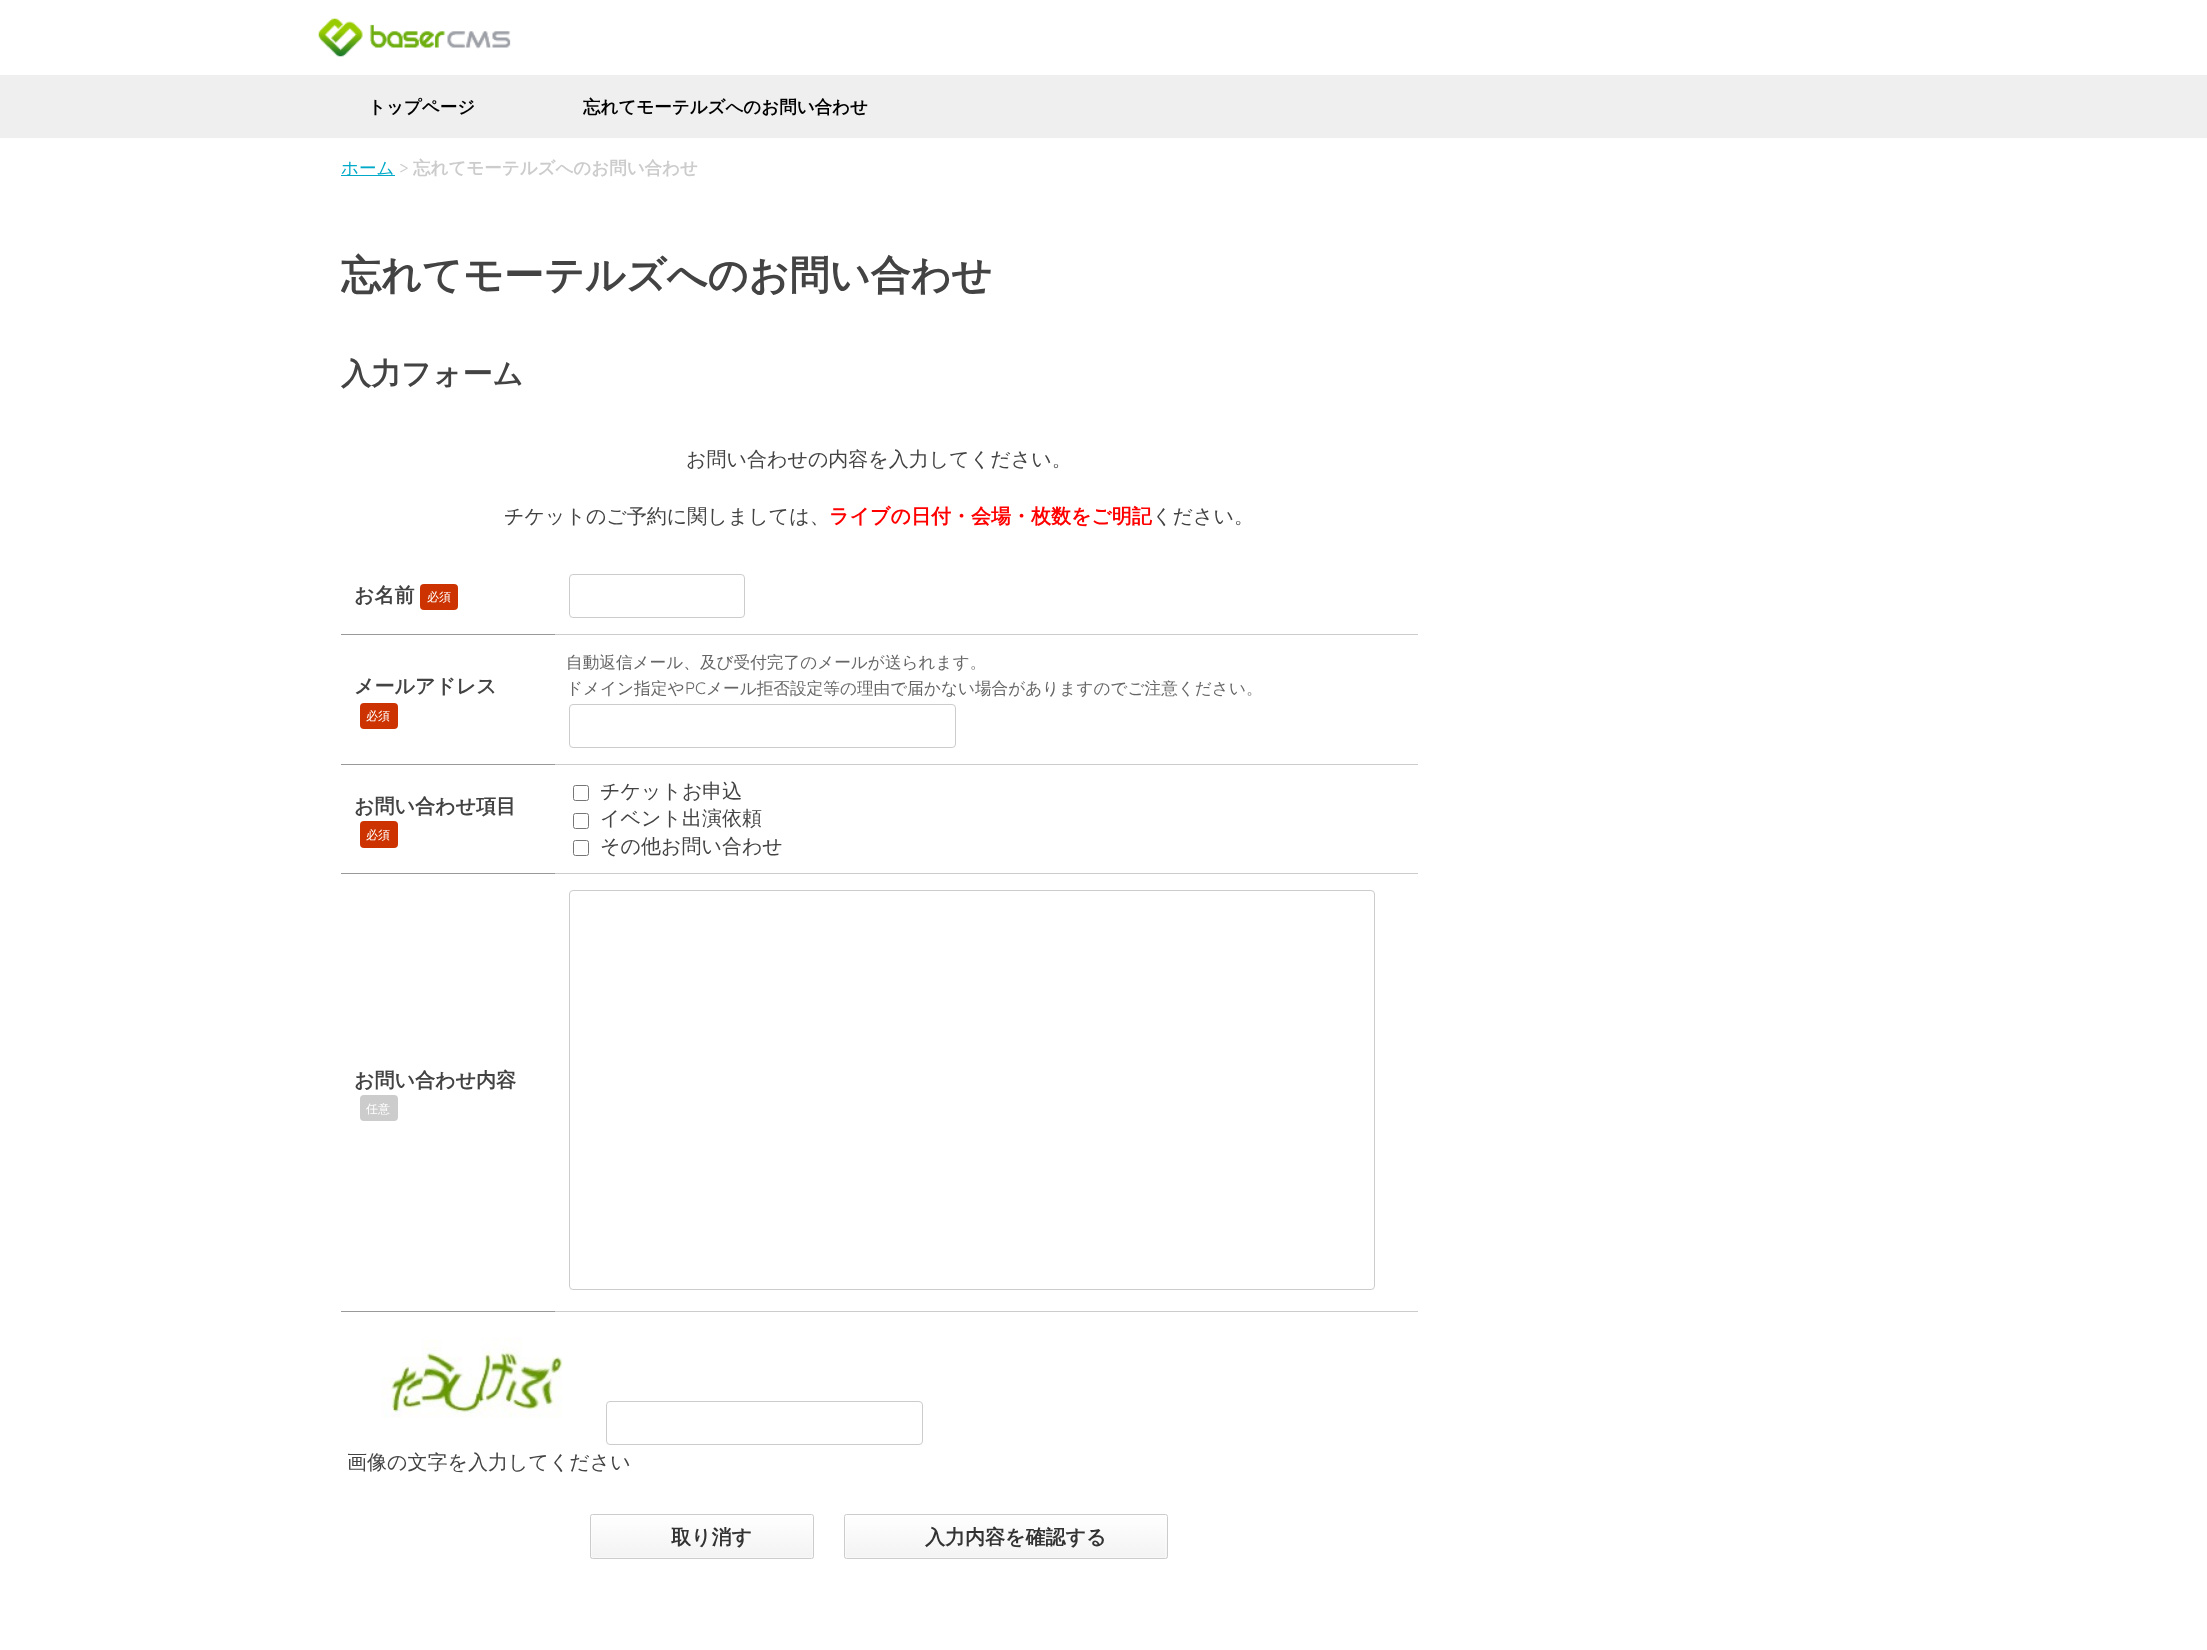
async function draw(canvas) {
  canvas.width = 2207
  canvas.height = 1650
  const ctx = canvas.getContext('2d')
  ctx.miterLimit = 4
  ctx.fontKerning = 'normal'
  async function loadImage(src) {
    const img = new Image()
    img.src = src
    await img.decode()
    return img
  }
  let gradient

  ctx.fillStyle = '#fff'
  ctx.fillRect(0, 0, 2207, 1650)
  ctx.drawImage(await loadImage('image0.png'), 318, 18, 193, 39)
  ctx.fillStyle = '#efefef'
  ctx.fillRect(0, 75, 2207, 63)
  ctx.font = 'bold 17.5px WenQuanYi Zen Hei'
  ctx.fillStyle = '#000'
  ctx.fillText('トップページ', 368, 113)
  ctx.fillText('忘れてモーテルズへのお問い合わせ', 583, 113)
  ctx.fillStyle = '#00a9c7'
  ctx.fillRect(341, 175, 54, 1)
  ctx.font = '500 17.5px WenQuanYi Zen Hei'
  ctx.fillText('ホーム', 341, 174)
  ctx.font = '17.5px Quicksand'
  ctx.fillStyle = '#ccc'
  ctx.fillText('>', 399, 174)
  ctx.font = 'bold 17.5px WenQuanYi Zen Hei'
  ctx.fillText('忘れてモーテルズへのお問い合わせ', 413, 174)
  ctx.font = 'bold 40px WenQuanYi Zen Hei'
  ctx.fillStyle = '#434343'
  ctx.fillText('忘れてモーテルズへのお問い合わせ', 341, 289)
  ctx.font = 'bold 30px WenQuanYi Zen Hei'
  ctx.fillText('入力フォーム', 341, 384)
  ctx.font = '500 20px WenQuanYi Zen Hei'
  ctx.fillText('お問い合わせの内容を入力してください。', 686, 466)
  ctx.fillText('チケットのご予約に関しましては、', 504, 523)
  ctx.font = 'bold 20px WenQuanYi Zen Hei'
  ctx.fillStyle = '#f00'
  ctx.fillText('ライブの日付・会場・枚数をご明記', 829, 523)
  ctx.font = '500 20px WenQuanYi Zen Hei'
  ctx.fillStyle = '#434343'
  ctx.fillText('ください。', 1152, 523)
  ctx.fillStyle = '#ccc'
  ctx.fillRect(554, 634, 864, 1)
  ctx.fillStyle = '#999'
  ctx.fillRect(341, 634, 214, 1)
  ctx.font = 'bold 20px WenQuanYi Zen Hei'
  ctx.fillStyle = '#434343'
  ctx.fillText('お名前', 354, 602)
  ctx.fillStyle = '#c30'
  ctx.beginPath()
  ctx.roundRect(420, 584, 38, 26, 4)
  ctx.fill()
  ctx.font = '500 12px WenQuanYi Zen Hei'
  ctx.fillStyle = '#fff'
  ctx.fillText('必須', 427, 601)
  ctx.beginPath()
  ctx.roundRect(569.5, 574.5, 175, 43, 3.5)
  ctx.strokeStyle = '#ccc'
  ctx.stroke()
  ctx.fillStyle = '#ccc'
  ctx.fillRect(554, 764, 864, 1)
  ctx.fillStyle = '#999'
  ctx.fillRect(341, 764, 214, 1)
  ctx.font = 'bold 20px WenQuanYi Zen Hei'
  ctx.fillStyle = '#434343'
  ctx.fillText('メールアドレス', 354, 693)
  ctx.fillStyle = '#c30'
  ctx.beginPath()
  ctx.roundRect(360, 703, 38, 26, 4)
  ctx.fill()
  ctx.font = '500 12px WenQuanYi Zen Hei'
  ctx.fillStyle = '#fff'
  ctx.fillText('必須', 366, 720)
  ctx.font = '500 16.65px WenQuanYi Zen Hei'
  ctx.fillStyle = '#666'
  ctx.fillText('自動返信メール、及び受付完了のメールが送られます。', 566, 668)
  ctx.fillText('ドメイン指定や', 566, 694)
  ctx.font = '16.65px Quicksand'
  ctx.fillText('PC', 685, 694)
  ctx.font = '500 16.65px WenQuanYi Zen Hei'
  ctx.fillText('メール拒否設定等の理由で届かない場合がありますのでご注意ください。', 706, 694)
  ctx.beginPath()
  ctx.roundRect(569.5, 704.5, 386, 43, 3.5)
  ctx.stroke()
  ctx.fillStyle = '#ccc'
  ctx.fillRect(554, 873, 864, 1)
  ctx.fillStyle = '#999'
  ctx.fillRect(341, 873, 214, 1)
  ctx.font = 'bold 20px WenQuanYi Zen Hei'
  ctx.fillStyle = '#434343'
  ctx.fillText('お問い合わせ項目', 354, 813)
  ctx.fillStyle = '#c30'
  ctx.beginPath()
  ctx.roundRect(360, 821, 38, 27, 4)
  ctx.fill()
  ctx.font = '500 12px WenQuanYi Zen Hei'
  ctx.fillStyle = '#fff'
  ctx.fillText('必須', 366, 839)
  ctx.beginPath()
  ctx.roundRect(573.5, 785.5, 15, 15, 2)
  ctx.strokeStyle = '#767676'
  ctx.stroke()
  ctx.font = '500 20px WenQuanYi Zen Hei'
  ctx.fillStyle = '#434343'
  ctx.fillText('チケットお申込', 600, 798)
  ctx.beginPath()
  ctx.roundRect(573.5, 813.5, 15, 15, 2)
  ctx.stroke()
  ctx.fillText('イベント出演依頼', 600, 825)
  ctx.beginPath()
  ctx.roundRect(573.5, 840.5, 15, 15, 2)
  ctx.stroke()
  ctx.fillText('その他お問い合わせ', 600, 853)
  ctx.fillStyle = '#ccc'
  ctx.fillRect(554, 1311, 864, 1)
  ctx.fillStyle = '#999'
  ctx.fillRect(341, 1311, 214, 1)
  ctx.font = 'bold 20px WenQuanYi Zen Hei'
  ctx.fillStyle = '#434343'
  ctx.fillText('お問い合わせ内容', 354, 1087)
  ctx.fillStyle = '#ccc'
  ctx.beginPath()
  ctx.roundRect(360, 1095, 38, 26, 4)
  ctx.fill()
  ctx.font = '500 12px WenQuanYi Zen Hei'
  ctx.fillStyle = '#fff'
  ctx.fillText('任意', 366, 1113)
  ctx.beginPath()
  ctx.roundRect(569.5, 890.5, 805, 399, 3.5)
  ctx.strokeStyle = '#ccc'
  ctx.stroke()
  ctx.drawImage(await loadImage('image1.png'), 381, 1337, 182, 81)
  ctx.beginPath()
  ctx.roundRect(606.5, 1401.5, 316, 43, 3.5)
  ctx.stroke()
  ctx.font = '500 20px WenQuanYi Zen Hei'
  ctx.fillStyle = '#434343'
  ctx.fillText('画像の文字を入力してください', 347, 1469)
  ctx.save()
  ctx.beginPath()
  ctx.roundRect(590, 1514, 224, 45, 2.5)
  ctx.clip()
  gradient = ctx.createLinearGradient(591, 1515, 591, 1558)
  gradient.addColorStop(0, '#fff')
  gradient.addColorStop(1, '#f3f3f3')
  ctx.fillStyle = gradient
  ctx.fillRect(590, 1515, 224, 43)
  ctx.restore()
  ctx.beginPath()
  ctx.roundRect(591.5, 1515.5, 221, 42, 0.5)
  ctx.strokeStyle = '#ffffff66'
  ctx.stroke()
  ctx.beginPath()
  ctx.roundRect(590.5, 1514.5, 223, 44, 2)
  ctx.strokeStyle = '#ccc'
  ctx.stroke()
  ctx.font = 'bold 20px WenQuanYi Zen Hei'
  ctx.fillStyle = '#333'
  ctx.fillText('取り消す', 671, 1544)
  ctx.save()
  ctx.beginPath()
  ctx.roundRect(844, 1514, 324, 45, 2.5)
  ctx.clip()
  gradient = ctx.createLinearGradient(845, 1515, 845, 1558)
  gradient.addColorStop(0, '#fff')
  gradient.addColorStop(1, '#f3f3f3')
  ctx.fillStyle = gradient
  ctx.fillRect(844, 1515, 324, 43)
  ctx.restore()
  ctx.beginPath()
  ctx.roundRect(845.5, 1515.5, 320, 42, 0.5)
  ctx.strokeStyle = '#ffffff66'
  ctx.stroke()
  ctx.beginPath()
  ctx.roundRect(844.5, 1514.5, 323, 44, 2)
  ctx.strokeStyle = '#ccc'
  ctx.stroke()
  ctx.fillText('入力内容を確認する', 925, 1544)
}

draw(document.querySelector('canvas'))
